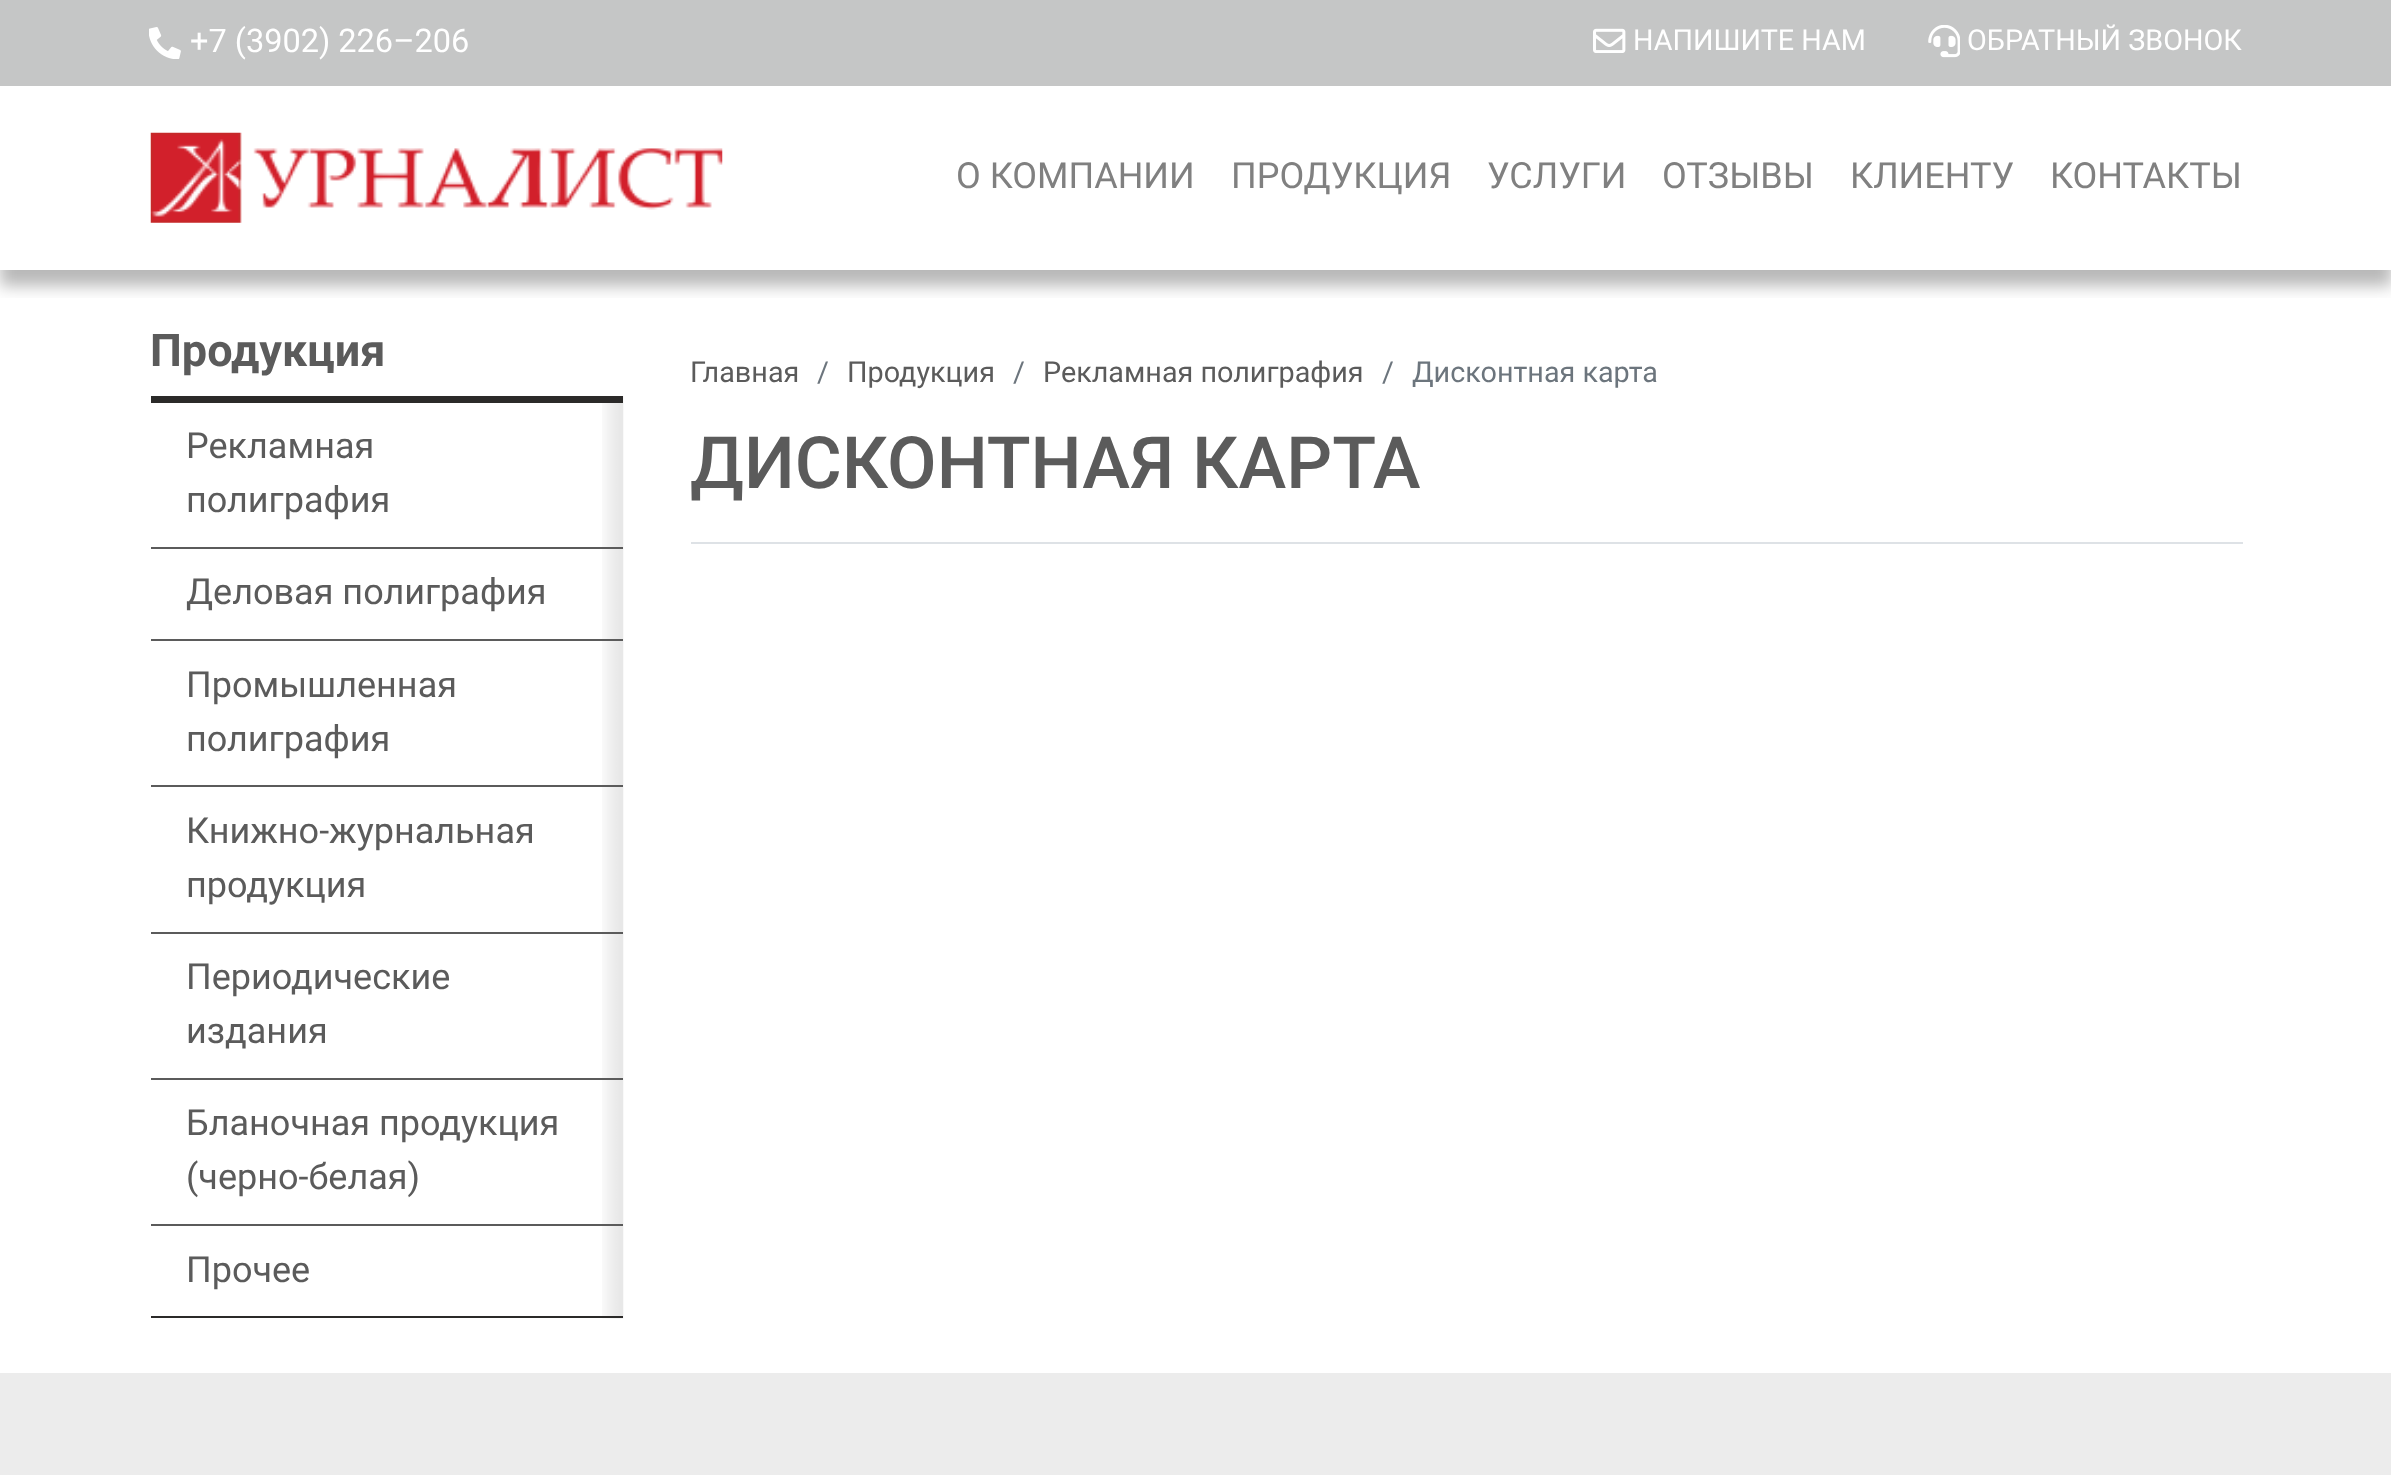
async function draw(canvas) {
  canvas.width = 2391
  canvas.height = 1475
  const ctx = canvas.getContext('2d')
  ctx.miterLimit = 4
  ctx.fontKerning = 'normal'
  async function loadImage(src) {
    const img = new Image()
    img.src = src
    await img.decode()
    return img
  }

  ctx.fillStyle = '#fff'
  ctx.fillRect(0, 0, 2391, 1475)
  ctx.fillStyle = '#c5c6c6'
  ctx.fillRect(0, 0, 2391, 86)
  ctx.drawImage(await loadImage('image0.png'), 149, 27, 32, 32)
  ctx.font = '32.5px Roboto'
  ctx.fillStyle = '#fff'
  ctx.fillText('+7 (3902) 226–206', 190, 52)
  ctx.drawImage(await loadImage('image1.png'), 1593, 28, 33, 25)
  ctx.font = '28.75px Roboto'
  ctx.fillText('НАПИШИТЕ НАМ', 1633, 50)
  ctx.drawImage(await loadImage('image2.png'), 1928, 25, 32, 33)
  ctx.fillText('ОБРАТНЫЙ ЗВОНОК', 1967, 50)
  ctx.save()
  ctx.beginPath()
  ctx.rect(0, 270, 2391, 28)
  ctx.clip()
  ctx.fillStyle = '#00000047'
  ctx.filter = 'blur(8px)'
  ctx.beginPath()
  ctx.rect(0, 101, 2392, 185)
  ctx.fill()
  ctx.filter = 'none'
  ctx.restore()
  ctx.drawImage(await loadImage('image3.png'), 150, 132, 573, 91)
  ctx.font = '36px Roboto'
  ctx.fillStyle = '#808080'
  ctx.fillText('О КОМПАНИИ', 956, 188)
  ctx.fillText('ПРОДУКЦИЯ', 1231, 188)
  ctx.fillText('УСЛУГИ', 1487, 188)
  ctx.fillText('ОТЗЫВЫ', 1662, 188)
  ctx.fillText('КЛИЕНТУ', 1850, 188)
  ctx.fillText('КОНТАКТЫ', 2050, 188)
  ctx.font = 'bold 45px Roboto'
  ctx.fillStyle = '#5b5b5b'
  ctx.fillText('Продукция', 150, 366)
  ctx.drawImage(await loadImage('image4.png'), 602, 396, 22, 923)
  ctx.fillStyle = '#2b2a29'
  ctx.fillRect(151, 396, 472, 7)
  ctx.fillRect(151, 1316, 472, 2)
  ctx.font = '36px Roboto'
  ctx.fillStyle = '#5b5b5b'
  ctx.fillText('Рекламная', 186, 458)
  ctx.fillText('полиграфия', 186, 512)
  ctx.fillRect(151, 547, 472, 2)
  ctx.fillText('Деловая полиграфия', 186, 604)
  ctx.fillRect(151, 639, 472, 2)
  ctx.fillText('Промышленная', 186, 697)
  ctx.fillText('полиграфия', 186, 751)
  ctx.fillRect(151, 785, 472, 2)
  ctx.fillText('Книжно-журнальная', 186, 843)
  ctx.fillText('продукция', 186, 897)
  ctx.fillRect(151, 932, 472, 2)
  ctx.fillText('Периодические', 186, 989)
  ctx.fillText('издания', 186, 1043)
  ctx.fillRect(151, 1078, 472, 2)
  ctx.fillText('Бланочная продукция', 186, 1135)
  ctx.fillText('(черно-белая)', 186, 1189)
  ctx.fillRect(151, 1224, 472, 2)
  ctx.fillText('Прочее', 186, 1282)
  ctx.font = '28.75px Roboto'
  ctx.fillText('Главная', 690, 382)
  ctx.fillStyle = '#6c757d'
  ctx.fillText('/', 817, 382)
  ctx.fillStyle = '#5b5b5b'
  ctx.fillText('Продукция', 847, 382)
  ctx.fillStyle = '#6c757d'
  ctx.fillText('/', 1013, 382)
  ctx.fillStyle = '#5b5b5b'
  ctx.fillText('Рекламная полиграфия', 1043, 382)
  ctx.fillStyle = '#6c757d'
  ctx.fillText('/', 1382, 382)
  ctx.fillText('Дисконтная карта', 1412, 382)
  ctx.fillStyle = '#dee2e6'
  ctx.fillRect(691, 542, 1552, 2)
  ctx.font = '500 72px Roboto'
  ctx.fillStyle = '#5b5b5b'
  ctx.fillText('ДИСКОНТНАЯ КАРТА', 690, 488)
  ctx.fillStyle = '#ececec'
  ctx.fillRect(0, 1373, 2391, 102)
}

draw(document.querySelector('canvas'))
